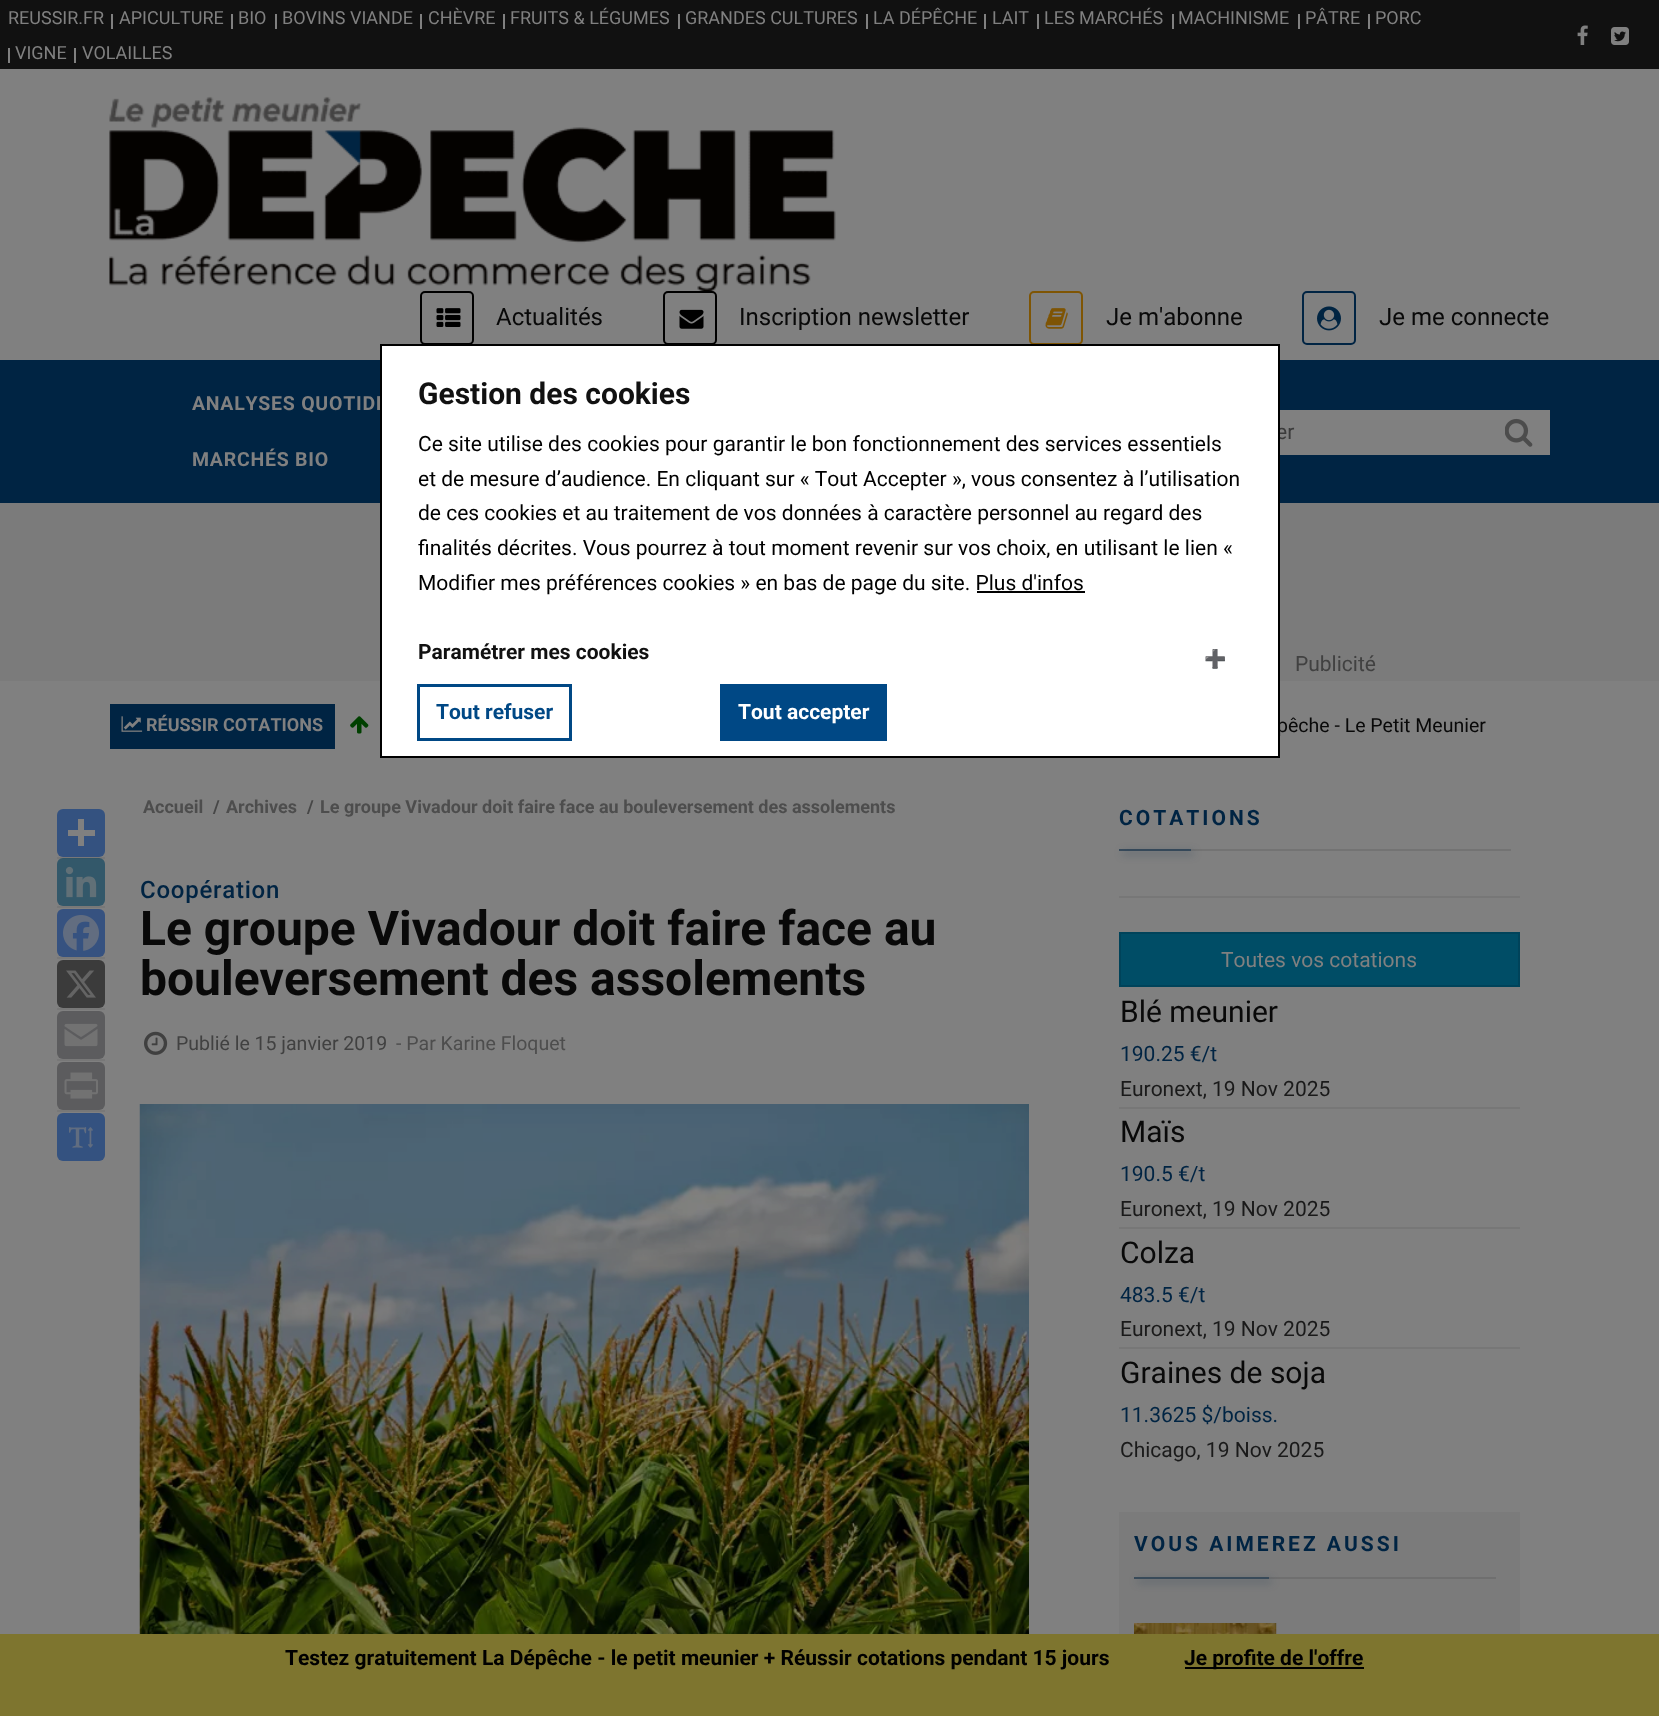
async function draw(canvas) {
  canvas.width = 1659
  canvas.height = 1716
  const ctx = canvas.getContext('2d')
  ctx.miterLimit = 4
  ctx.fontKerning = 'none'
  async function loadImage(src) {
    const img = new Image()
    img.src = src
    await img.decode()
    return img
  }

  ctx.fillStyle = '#808080'
  ctx.fillRect(0, 0, 1659, 1716)
  ctx.fillStyle = '#111'
  ctx.fillRect(0, 0, 1659, 69)
  ctx.font = '18px Roboto'
  ctx.fillStyle = '#808080'
  ctx.fillText('REUSSIR.FR', 8, 24)
  ctx.fillRect(111, 14, 2, 15)
  ctx.fillText('APICULTURE', 119, 24)
  ctx.fillRect(231, 14, 2, 15)
  ctx.fillText('BIO', 238, 24)
  ctx.fillRect(275, 14, 2, 15)
  ctx.fillText('BOVINS VIANDE', 282, 24)
  ctx.fillRect(420, 14, 2, 15)
  ctx.fillText('CHÈVRE', 428, 24)
  ctx.fillRect(503, 14, 2, 15)
  ctx.fillText('FRUITS & LÉGUMES', 510, 24)
  ctx.fillRect(678, 14, 2, 15)
  ctx.fillText('GRANDES CULTURES', 685, 24)
  ctx.fillRect(866, 14, 2, 15)
  ctx.fillText('LA DÉPÊCHE', 873, 24)
  ctx.fillRect(984, 14, 2, 15)
  ctx.fillText('LAIT', 992, 24)
  ctx.fillRect(1037, 14, 2, 15)
  ctx.fillText('LES MARCHÉS', 1044, 24)
  ctx.fillRect(1172, 14, 2, 15)
  ctx.fillText('MACHINISME', 1178, 24)
  ctx.fillRect(1298, 14, 2, 15)
  ctx.fillText('PÂTRE', 1305, 24)
  ctx.fillRect(1368, 14, 2, 15)
  ctx.fillText('PORC', 1375, 24)
  ctx.fillRect(8, 48, 2, 15)
  ctx.fillText('VIGNE', 15, 59)
  ctx.fillRect(74, 48, 2, 15)
  ctx.fillText('VOLAILLES', 82, 59)
  ctx.drawImage(await loadImage('image0.png'), 1577, 25, 11, 20)
  ctx.drawImage(await loadImage('image1.png'), 1611, 27, 18, 18)
  ctx.drawImage(await loadImage('image2.png'), 109, 96, 727, 195)
  ctx.beginPath()
  ctx.roundRect(421, 292, 52, 52, 4)
  ctx.strokeStyle = '#000'
  ctx.lineWidth = 2
  ctx.stroke()
  ctx.drawImage(await loadImage('image3.png'), 436, 308, 25, 19)
  ctx.font = '24px Roboto'
  ctx.fillStyle = '#090909'
  ctx.fillText('Actualités', 496, 325)
  ctx.beginPath()
  ctx.roundRect(664, 292, 52, 52, 4)
  ctx.stroke()
  ctx.drawImage(await loadImage('image4.png'), 679, 309, 25, 20)
  ctx.fillText('Inscription newsletter', 739, 325)
  ctx.beginPath()
  ctx.roundRect(1030, 292, 52, 52, 4)
  ctx.strokeStyle = '#7f5504'
  ctx.stroke()
  ctx.drawImage(await loadImage('image5.png'), 1045, 308, 23, 21)
  ctx.fillText('Je m\'abonne', 1106, 325)
  ctx.beginPath()
  ctx.roundRect(1303, 292, 52, 52, 4)
  ctx.strokeStyle = '#002443'
  ctx.stroke()
  ctx.drawImage(await loadImage('image6.png'), 1317, 306, 24, 25)
  ctx.fillText('Je me connecte', 1379, 325)
  ctx.fillStyle = '#002443'
  ctx.fillRect(0, 360, 1659, 143)
  ctx.letterSpacing = '0.75px'
  ctx.font = 'bold 19.5px Roboto'
  ctx.fillStyle = '#808080'
  ctx.fillText('ANALYSES QUOTIDI', 192, 410)
  ctx.fillText('MARCHÉS BIO', 192, 466)
  ctx.fillRect(1280, 410, 270, 45)
  ctx.letterSpacing = '0px'
  ctx.font = '21px Roboto'
  ctx.fillStyle = '#3b3b3b'
  ctx.fillText('er', 1276, 439)
  ctx.drawImage(await loadImage('image7.png'), 1505, 418, 28, 29)
  ctx.fillStyle = '#7b7b7b'
  ctx.fillRect(0, 503, 1659, 178)
  ctx.fillStyle = '#414141'
  ctx.fillText('Publicité', 1295, 671)
  ctx.fillStyle = '#002443'
  ctx.fillRect(110, 704, 225, 45)
  ctx.drawImage(await loadImage('image8.png'), 121, 716, 22, 16)
  ctx.font = 'bold 18px Roboto'
  ctx.fillStyle = '#808080'
  ctx.fillText('RÉUSSIR COTATIONS', 146, 731)
  ctx.drawImage(await loadImage('image9.png'), 350, 716, 19, 18)
  ctx.font = '19.5px Roboto'
  ctx.fillStyle = '#090909'
  ctx.fillText('pêche - Le Petit Meunier', 1277, 732)
  ctx.fillStyle = '#787878'
  ctx.fillRect(57, 857, 48, 2)
  ctx.fillStyle = '#345280'
  ctx.beginPath()
  ctx.roundRect(57, 809, 48, 48, 6)
  ctx.fill()
  ctx.fillStyle = '#808080'
  ctx.fillRect(78, 819, 6, 27)
  ctx.fillRect(68, 830, 27, 6)
  ctx.fillStyle = '#787878'
  ctx.fillRect(57, 906, 48, 2)
  ctx.fillStyle = '#003e5b99'
  ctx.beginPath()
  ctx.roundRect(57, 858, 48, 48, 6)
  ctx.fill()
  ctx.drawImage(await loadImage('image10.png'), 65, 866, 32, 32)
  ctx.fillStyle = '#787878'
  ctx.fillRect(57, 957, 48, 2)
  ctx.fillStyle = '#365280'
  ctx.beginPath()
  ctx.roundRect(57, 909, 48, 48, 6)
  ctx.fill()
  ctx.drawImage(await loadImage('image11.png'), 63, 915, 36, 36)
  ctx.fillStyle = '#787878'
  ctx.fillRect(57, 1008, 48, 2)
  ctx.fillStyle = '#3b3b3b'
  ctx.beginPath()
  ctx.roundRect(57, 960, 48, 48, 6)
  ctx.fill()
  ctx.drawImage(await loadImage('image12.png'), 66, 970, 30, 28)
  ctx.fillStyle = '#787878'
  ctx.fillRect(57, 1059, 48, 2)
  ctx.fillStyle = '#5c5c5e'
  ctx.beginPath()
  ctx.roundRect(57, 1011, 48, 48, 6)
  ctx.fill()
  ctx.drawImage(await loadImage('image13.png'), 64, 1023, 34, 24)
  ctx.fillStyle = '#787878'
  ctx.fillRect(57, 1110, 48, 2)
  ctx.fillStyle = '#5c5c5e'
  ctx.beginPath()
  ctx.roundRect(57, 1062, 48, 48, 6)
  ctx.fill()
  ctx.drawImage(await loadImage('image14.png'), 64, 1072, 34, 27)
  ctx.fillStyle = '#345280'
  ctx.beginPath()
  ctx.roundRect(57, 1113, 48, 48, 6)
  ctx.fill()
  ctx.drawImage(await loadImage('image15.png'), 69, 1127, 24, 21)
  ctx.font = 'bold 18px Roboto'
  ctx.fillStyle = '#4d4d4d'
  ctx.fillText('Accueil', 143, 813)
  ctx.fillStyle = '#474747'
  ctx.fillText('/', 213, 813)
  ctx.fillStyle = '#4d4d4d'
  ctx.fillText('Archives', 226, 813)
  ctx.fillStyle = '#474747'
  ctx.fillText('/', 307, 813)
  ctx.fillStyle = '#4d4d4d'
  ctx.fillText('Le groupe Vivadour doit faire face au bouleversement des assolements', 320, 813)
  ctx.letterSpacing = '0.75px'
  ctx.font = '500 24px Roboto'
  ctx.fillStyle = '#002443'
  ctx.fillText('Coopération', 140, 898)
  ctx.letterSpacing = '0px'
  ctx.font = 'bold 48px Roboto'
  ctx.fillStyle = '#090909'
  ctx.fillText('Le groupe Vivadour doit faire face au', 140, 945)
  ctx.fillText('bouleversement des assolements', 140, 995)
  ctx.drawImage(await loadImage('image16.png'), 144, 1031, 24, 24)
  ctx.font = '19.5px Roboto'
  ctx.fillStyle = '#414141'
  ctx.fillText('Publié le 15 janvier 2019', 176, 1050)
  ctx.fillStyle = '#4d4d4d'
  ctx.fillText('- Par Karine Floquet', 396, 1050)
  ctx.drawImage(await loadImage('image17.png'), 139, 1104, 890, 530)
  ctx.fillStyle = '#0000001a'
  ctx.fillRect(1119, 849, 392, 2)
  ctx.letterSpacing = '3px'
  ctx.font = 'bold 21px Roboto'
  ctx.fillStyle = '#002443'
  ctx.fillText('COTATIONS', 1119, 825)
  ctx.fillStyle = '#00244380'
  ctx.filter = 'blur(4.5px)'
  ctx.beginPath()
  ctx.rect(1122, 852, 72, 2)
  ctx.fill()
  ctx.filter = 'none'
  ctx.fillRect(1119, 849, 72, 2)
  ctx.fillStyle = '#777'
  ctx.fillRect(1119, 896, 401, 2)
  ctx.fillStyle = '#004d66'
  ctx.beginPath()
  ctx.rect(1120, 933, 399, 53)
  ctx.fill()
  ctx.strokeStyle = '#00435a'
  ctx.stroke()
  ctx.letterSpacing = '0px'
  ctx.font = '21px Roboto'
  ctx.fillStyle = '#808080'
  ctx.fillText('Toutes vos cotations', 1221, 967)
  ctx.font = '30px Roboto'
  ctx.fillStyle = '#090909'
  ctx.fillText('Blé meunier', 1120, 1022)
  ctx.font = '21px Roboto'
  ctx.fillStyle = '#002443'
  ctx.fillText('190.25 €/t', 1120, 1061)
  ctx.fillStyle = '#1a1a1a'
  ctx.fillText('Euronext, 19 Nov 2025', 1120, 1096)
  ctx.font = '30px Roboto'
  ctx.fillStyle = '#090909'
  ctx.fillText('Maïs', 1120, 1142)
  ctx.font = '21px Roboto'
  ctx.fillStyle = '#002443'
  ctx.fillText('190.5 €/t', 1120, 1181)
  ctx.fillStyle = '#1a1a1a'
  ctx.fillText('Euronext, 19 Nov 2025', 1120, 1216)
  ctx.font = '30px Roboto'
  ctx.fillStyle = '#090909'
  ctx.fillText('Colza', 1120, 1263)
  ctx.font = '21px Roboto'
  ctx.fillStyle = '#002443'
  ctx.fillText('483.5 €/t', 1120, 1302)
  ctx.fillStyle = '#1a1a1a'
  ctx.fillText('Euronext, 19 Nov 2025', 1120, 1336)
  ctx.font = '30px Roboto'
  ctx.fillStyle = '#090909'
  ctx.fillText('Graines de soja', 1120, 1383)
  ctx.font = '21px Roboto'
  ctx.fillStyle = '#002443'
  ctx.fillText('11.3625 $/boiss.', 1120, 1422)
  ctx.fillStyle = '#1a1a1a'
  ctx.fillText('Chicago, 19 Nov 2025', 1120, 1457)
  ctx.fillStyle = '#777'
  ctx.fillRect(1119, 1107, 401, 2)
  ctx.fillRect(1119, 1227, 401, 2)
  ctx.fillRect(1119, 1347, 401, 2)
  ctx.fillStyle = '#7b7b7b'
  ctx.fillRect(1119, 1512, 401, 122)
  ctx.fillStyle = '#6f6f6f'
  ctx.fillRect(1269, 1577, 227, 2)
  ctx.letterSpacing = '3px'
  ctx.font = 'bold 21px Roboto'
  ctx.fillStyle = '#002443'
  ctx.fillText('VOUS AIMEREZ AUSSI', 1134, 1551)
  ctx.fillStyle = '#00244380'
  ctx.filter = 'blur(4.5px)'
  ctx.beginPath()
  ctx.rect(1137, 1580, 135, 2)
  ctx.fill()
  ctx.filter = 'none'
  ctx.fillStyle = '#384a59'
  ctx.fillRect(1134, 1577, 135, 2)
  ctx.drawImage(await loadImage('image18.png'), 1134, 1623, 143, 11)
  ctx.fillStyle = '#7e752f'
  ctx.fillRect(0, 1634, 1659, 82)
  ctx.letterSpacing = '0px'
  ctx.fillStyle = '#000'
  ctx.fillText('Testez gratuitement La Dépêche - le petit meunier + Réussir cotations pendant 15 jours', 285, 1665)
  ctx.fillRect(1185, 1667, 179, 2)
  ctx.fillText('Je profite de l\'offre', 1184, 1665)
  ctx.fillStyle = '#fff'
  ctx.beginPath()
  ctx.rect(381, 345, 898, 412)
  ctx.fill()
  ctx.strokeStyle = '#000'
  ctx.stroke()
  ctx.font = 'bold 30px Roboto'
  ctx.fillStyle = '#111'
  ctx.fillText('Gestion des cookies', 418, 404)
  ctx.font = '21px Roboto'
  ctx.fillStyle = '#000'
  ctx.fillText('Ce site utilise des cookies pour garantir le bon fonctionnement des services essentiels', 418, 451)
  ctx.fillText('et de mesure d’audience. En cliquant sur « Tout Accepter », vous consentez à l’utilisation', 418, 486)
  ctx.fillText('de ces cookies et au traitement de vos données à caractère personnel au regard des', 418, 520)
  ctx.fillText('finalités décrites. Vous pourrez à tout moment revenir sur vos choix, en utilisant le lien «', 418, 555)
  ctx.fillText('Modifier mes préférences cookies » en bas de page du site. Plus d\'infos', 418, 590)
  ctx.fillRect(977, 591, 108, 2)
  ctx.font = 'bold 21px Roboto'
  ctx.fillStyle = '#111'
  ctx.fillText('Paramétrer mes cookies', 418, 659)
  ctx.font = 'bold 18px Noto Color Emoji'
  ctx.fillText('➕', 1204, 665)
  ctx.strokeStyle = '#004885'
  ctx.lineWidth = 3
  ctx.strokeRect(418.5, 685.5, 152, 54)
  ctx.font = 'bold 21px Roboto'
  ctx.fillStyle = '#004885'
  ctx.fillText('Tout refuser', 436, 719)
  ctx.fillRect(720, 684, 167, 57)
  ctx.fillStyle = '#fff'
  ctx.fillText('Tout accepter', 738, 719)
}

draw(document.querySelector('canvas'))
